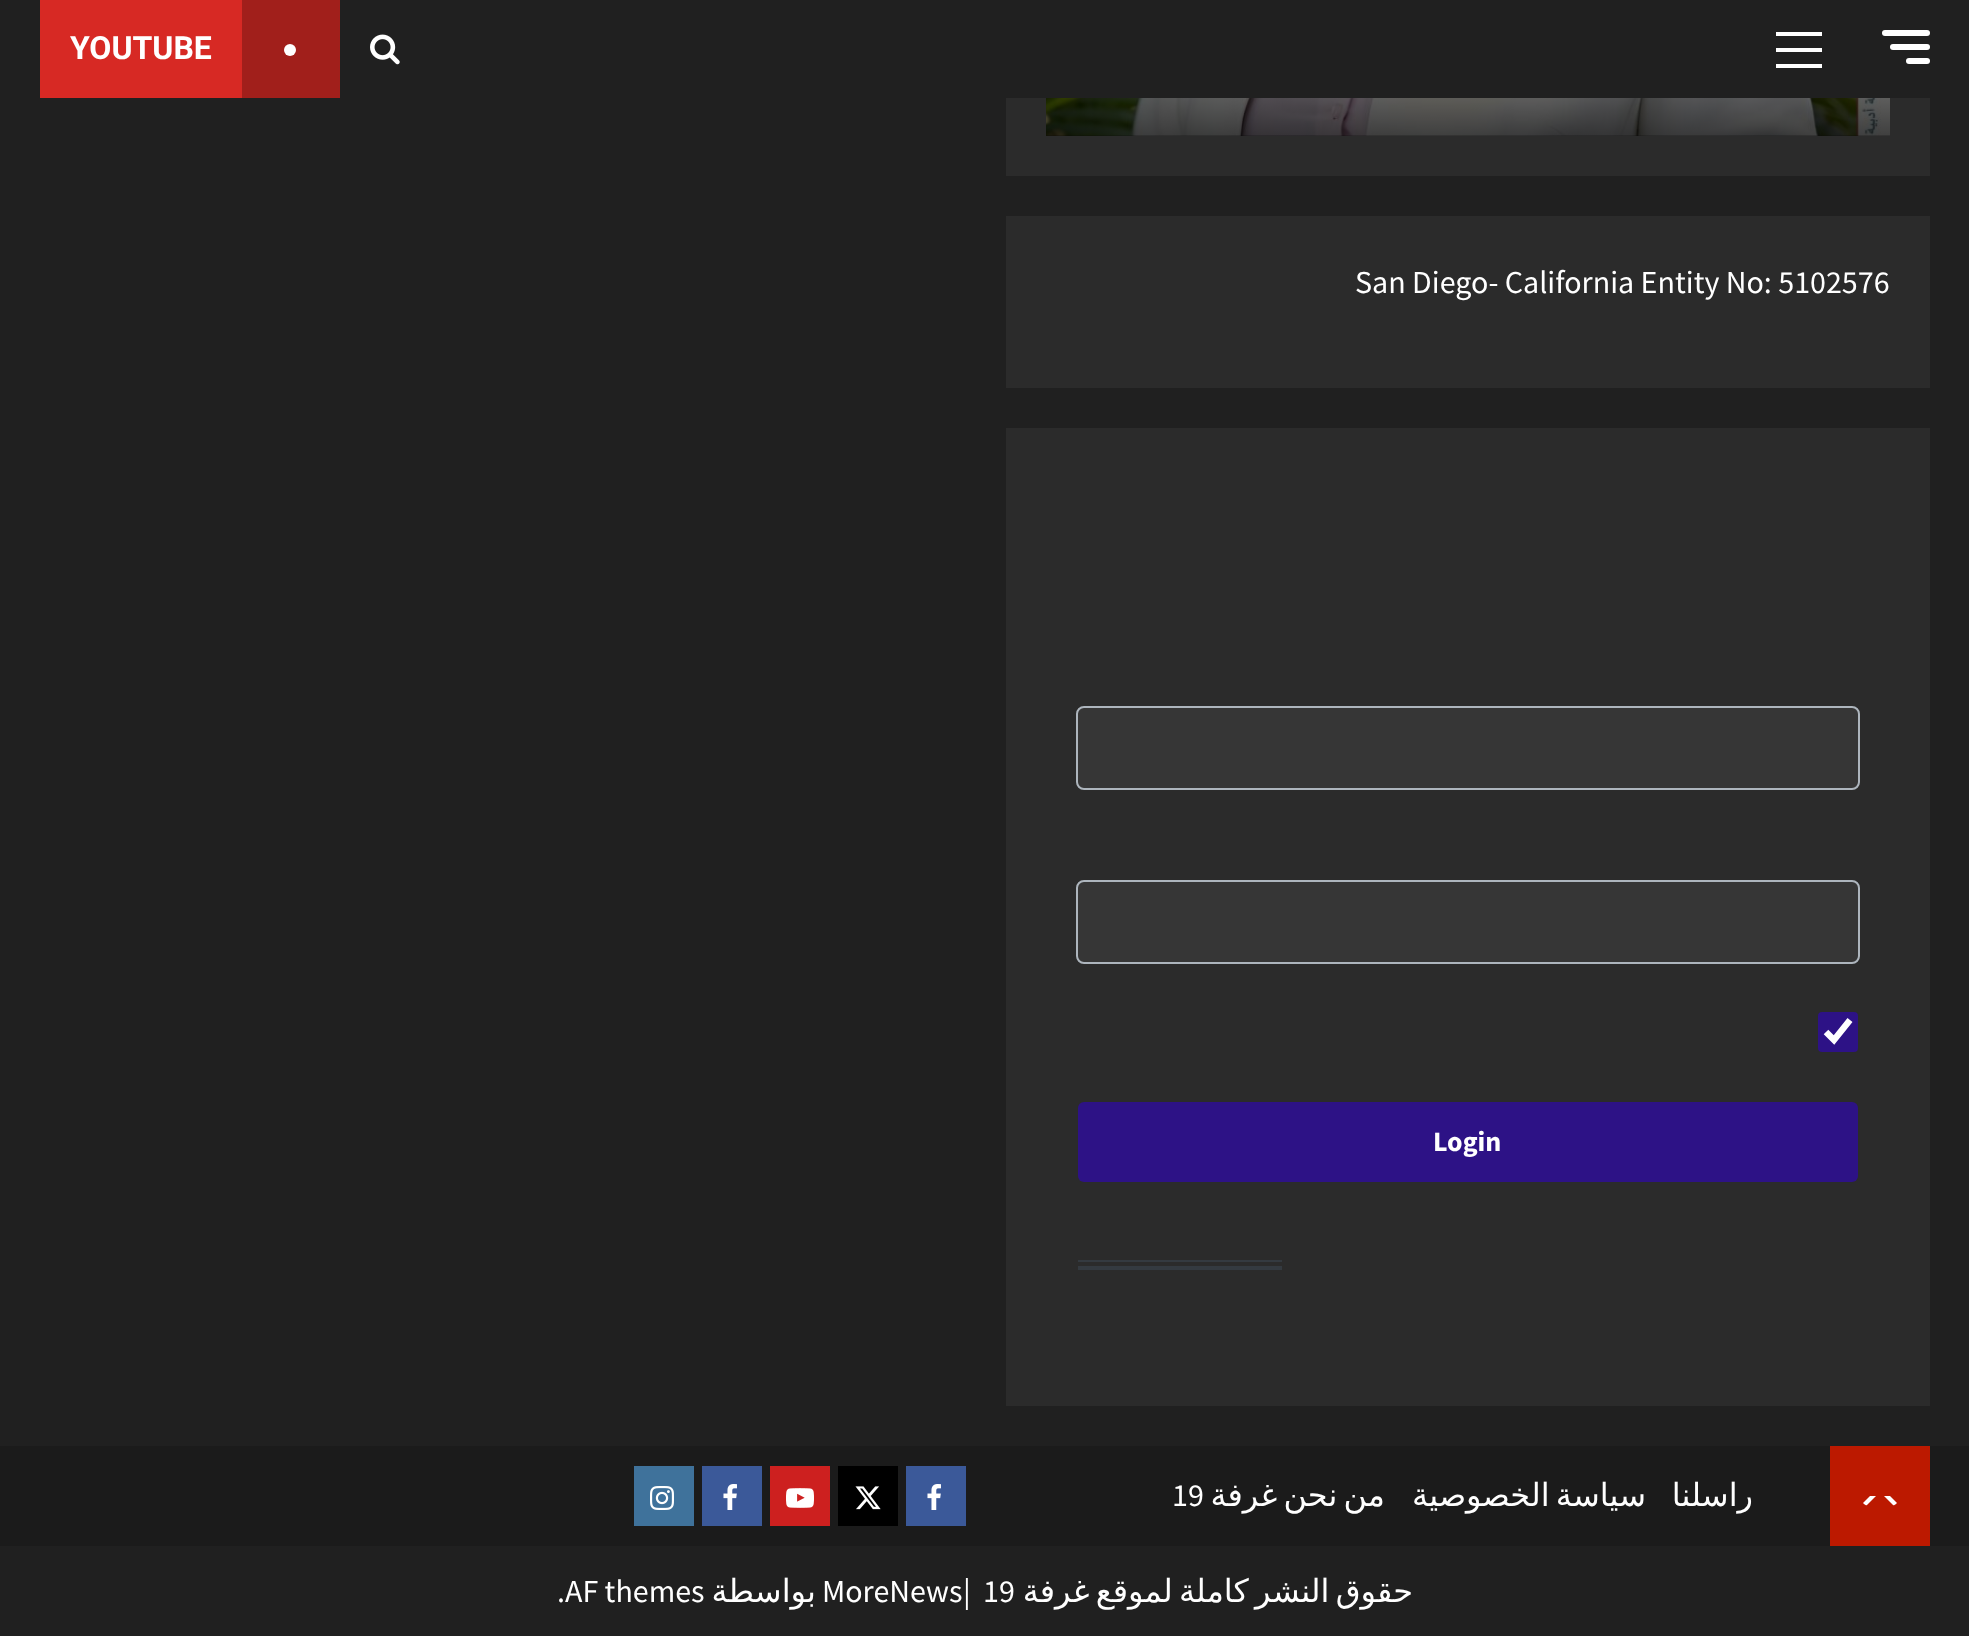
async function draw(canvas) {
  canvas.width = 1969
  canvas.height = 1636
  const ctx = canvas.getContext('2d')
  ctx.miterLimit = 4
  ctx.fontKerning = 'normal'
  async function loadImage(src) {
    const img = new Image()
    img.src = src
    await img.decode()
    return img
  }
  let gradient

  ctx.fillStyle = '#202020'
  ctx.fillRect(0, 0, 1969, 1636)
  ctx.fillStyle = '#d72924'
  ctx.fillRect(40, 0, 202, 98)
  ctx.font = 'bold 32px Roboto'
  ctx.fillStyle = '#fff'
  ctx.fillText('YOUTUBE', 70, 59)
  ctx.fillStyle = '#a11f1b'
  ctx.fillRect(242, 0, 98, 98)
  ctx.fillStyle = '#fff'
  ctx.beginPath()
  ctx.arc(290, 50, 6, 0, 2 * Math.PI)
  ctx.fill()
  ctx.drawImage(await loadImage('image0.png'), 370, 34, 30, 31)
  ctx.fillRect(1776, 48, 46, 4)
  ctx.fillRect(1776, 32, 46, 4)
  ctx.fillRect(1776, 64, 46, 4)
  ctx.beginPath()
  ctx.roundRect(1882, 30, 48, 6, 3)
  ctx.fill()
  ctx.beginPath()
  ctx.roundRect(1890, 44, 40, 6, 3)
  ctx.fill()
  ctx.beginPath()
  ctx.roundRect(1906, 58, 24, 6, 3)
  ctx.fill()
  ctx.fillStyle = '#2b2b2b'
  ctx.fillRect(1006, 98, 924, 78)
  ctx.drawImage(await loadImage('image1.png'), 1046, 98, 844, 38)
  gradient = ctx.createLinearGradient(1467, -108, 1467, 136)
  gradient.addColorStop(0, '#00000000')
  gradient.addColorStop(1, '#000000bf')
  ctx.fillStyle = gradient
  ctx.fillRect(1046, 98, 844, 38)
  ctx.fillStyle = '#2b2b2b'
  ctx.fillRect(1006, 216, 924, 172)
  ctx.font = '32px Source Sans Pro'
  ctx.fillStyle = '#fff'
  ctx.fillText('San Diego- California Entity No: 5102576', 1355, 293)
  ctx.fillStyle = '#2b2b2b'
  ctx.fillRect(1006, 428, 924, 978)
  ctx.fillStyle = '#363636'
  ctx.beginPath()
  ctx.roundRect(1077, 707, 782, 82, 7)
  ctx.fill()
  ctx.strokeStyle = '#adb5bd'
  ctx.lineWidth = 2
  ctx.stroke()
  ctx.beginPath()
  ctx.roundRect(1077, 881, 782, 82, 7)
  ctx.fill()
  ctx.stroke()
  ctx.fillStyle = '#2d1286'
  ctx.beginPath()
  ctx.roundRect(1818, 1012, 40, 40, 4)
  ctx.fill()
  ctx.beginPath()
  ctx.moveTo(1826, 1032)
  ctx.lineTo(1834, 1040)
  ctx.lineTo(1850, 1020)
  ctx.strokeStyle = '#fff'
  ctx.lineWidth = 6.4
  ctx.stroke()
  ctx.beginPath()
  ctx.roundRect(1078, 1102, 780, 80, 6)
  ctx.fill()
  ctx.font = 'bold 28px Source Sans Pro'
  ctx.fillStyle = '#fff'
  ctx.fillText('Login', 1433, 1151)
  ctx.fillStyle = '#343a40'
  ctx.fillRect(1078, 1260, 204, 2)
  ctx.fillRect(1078, 1266, 204, 4)
  ctx.fillStyle = '#1b1b1b'
  ctx.fillRect(0, 1446, 1969, 100)
  ctx.fillStyle = '#3f729b'
  ctx.fillRect(634, 1466, 60, 60)
  ctx.drawImage(await loadImage('image2.png'), 650, 1486, 24, 24)
  ctx.fillStyle = '#3b5999'
  ctx.fillRect(702, 1466, 60, 60)
  ctx.drawImage(await loadImage('image3.png'), 723, 1484, 14, 26)
  ctx.fillStyle = '#cd201f'
  ctx.fillRect(770, 1466, 60, 60)
  ctx.drawImage(await loadImage('image4.png'), 786, 1488, 28, 20)
  ctx.fillStyle = '#000'
  ctx.fillRect(838, 1466, 60, 60)
  ctx.drawImage(await loadImage('image5.png'), 855, 1486, 26, 24)
  ctx.fillStyle = '#3b5999'
  ctx.fillRect(906, 1466, 60, 60)
  ctx.drawImage(await loadImage('image3.png'), 927, 1484, 14, 26)
  ctx.font = '32px Source Sans Pro'
  ctx.fillStyle = '#fff'
  ctx.fillText('19', 1172, 1506)
  ctx.wordSpacing = '-4px'
  ctx.direction = 'rtl'
  ctx.font = '32px DejaVu Sans'
  ctx.fillText('من نحن غرفة', 1385, 1506)
  ctx.fillText('سياسة الخصوصية', 1646, 1506)
  ctx.wordSpacing = '0px'
  ctx.fillText('راسلنا', 1753, 1506)
  ctx.direction = 'ltr'
  ctx.font = '32px Source Sans Pro'
  ctx.fillText('.AF themes', 557, 1602)
  ctx.direction = 'rtl'
  ctx.font = '32px DejaVu Sans'
  ctx.fillText('بواسطة', 816, 1602)
  ctx.direction = 'ltr'
  ctx.font = '32px Source Sans Pro'
  ctx.fillText('MoreNews', 822, 1602)
  ctx.fillText('|', 963, 1602)
  ctx.fillText('19', 983, 1602)
  ctx.wordSpacing = '-4px'
  ctx.direction = 'rtl'
  ctx.font = '32px DejaVu Sans'
  ctx.fillText('حقوق النشر كاملة لموقع غرفة', 1413, 1602)
  ctx.fillStyle = '#bc1900'
  ctx.fillRect(1830, 1446, 100, 100)
  ctx.fillStyle = '#fff'
  ctx.beginPath()
  ctx.moveTo(1870, 1506)
  ctx.lineTo(1890, 1506)
  ctx.bezierCurveTo(1893, 1506, 1895.5, 1505, 1897, 1503)
  ctx.lineTo(1890, 1496)
  ctx.lineTo(1870, 1496)
  ctx.lineTo(1863, 1503)
  ctx.bezierCurveTo(1864.5, 1505, 1867, 1506, 1870, 1506)
  ctx.closePath()
  ctx.fill()
  ctx.fillStyle = '#bc1900'
  ctx.beginPath()
  ctx.moveTo(1900, 1512)
  ctx.lineTo(1860, 1512)
  ctx.lineTo(1880, 1492)
  ctx.closePath()
  ctx.fill()
}

draw(document.querySelector('canvas'))
